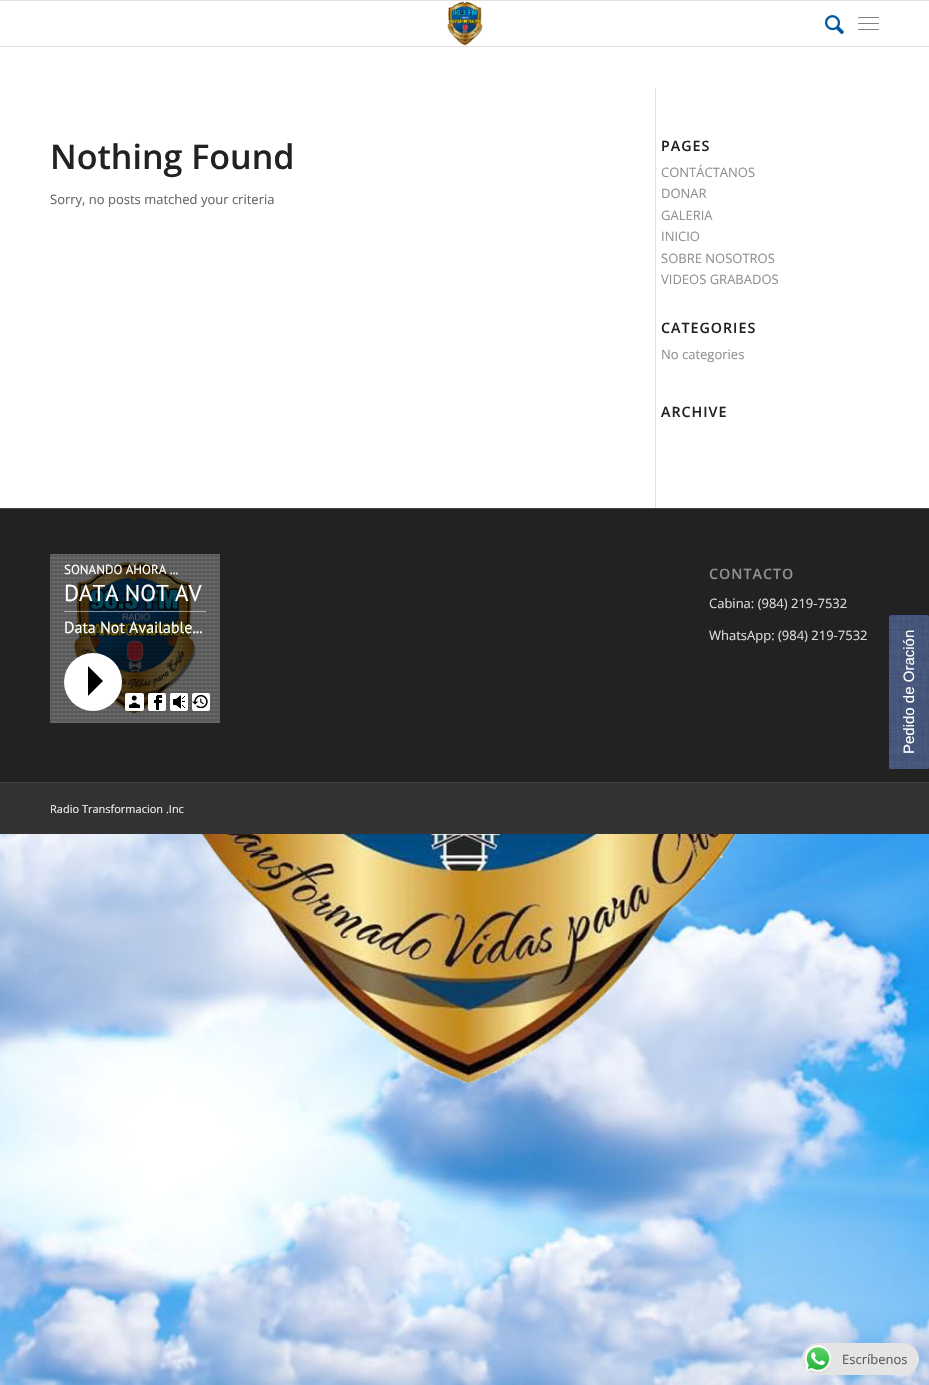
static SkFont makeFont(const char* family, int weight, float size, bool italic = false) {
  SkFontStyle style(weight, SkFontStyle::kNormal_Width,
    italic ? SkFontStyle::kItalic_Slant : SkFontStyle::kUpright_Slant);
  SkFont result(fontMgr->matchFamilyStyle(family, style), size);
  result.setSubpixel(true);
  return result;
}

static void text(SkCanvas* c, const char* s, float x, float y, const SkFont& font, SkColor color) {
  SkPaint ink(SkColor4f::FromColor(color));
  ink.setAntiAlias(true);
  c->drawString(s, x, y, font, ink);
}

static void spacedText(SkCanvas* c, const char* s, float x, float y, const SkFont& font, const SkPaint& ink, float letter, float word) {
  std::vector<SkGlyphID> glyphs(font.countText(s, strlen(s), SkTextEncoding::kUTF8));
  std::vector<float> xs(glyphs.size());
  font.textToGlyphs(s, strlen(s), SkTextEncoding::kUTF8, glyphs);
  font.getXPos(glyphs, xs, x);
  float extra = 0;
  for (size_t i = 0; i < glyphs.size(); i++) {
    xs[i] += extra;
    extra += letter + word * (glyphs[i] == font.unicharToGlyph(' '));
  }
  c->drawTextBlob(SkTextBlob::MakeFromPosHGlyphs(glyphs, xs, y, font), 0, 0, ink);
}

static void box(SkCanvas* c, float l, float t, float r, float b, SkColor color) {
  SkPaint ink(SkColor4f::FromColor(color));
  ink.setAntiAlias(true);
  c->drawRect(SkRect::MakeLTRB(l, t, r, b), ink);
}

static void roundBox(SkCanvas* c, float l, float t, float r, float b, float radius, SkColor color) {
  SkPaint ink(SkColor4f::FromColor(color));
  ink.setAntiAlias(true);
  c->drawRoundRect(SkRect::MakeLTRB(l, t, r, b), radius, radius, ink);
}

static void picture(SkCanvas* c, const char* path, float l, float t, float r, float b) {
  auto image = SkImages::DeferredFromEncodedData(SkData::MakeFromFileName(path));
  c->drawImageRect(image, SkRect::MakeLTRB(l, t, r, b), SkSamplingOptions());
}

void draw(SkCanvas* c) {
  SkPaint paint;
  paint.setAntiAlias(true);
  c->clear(0xffffffff);
  box(c, 0, 0, 929, 1, 0xffe1e1e1);
  box(c, 0, 46, 929, 47, 0xffe1e1e1);
  picture(c, "img_01.png", 447, 1, 483, 46);
  picture(c, "img_02.png", 825, 15, 844, 35);
  roundBox(c, 858, 23, 879, 24, 0.5f, 0xff808080);
  roundBox(c, 858, 17, 879, 18, 0.5f, 0xff808080);
  roundBox(c, 858, 29, 879, 30, 0.5f, 0xff808080);
  SkFont face1 = makeFont("Open Sans", 600, 34);
  text(c, "Nothing Found", 50, 169, face1, 0xff222222);
  SkFont face2 = makeFont("Open Sans", 400, 13);
  text(c, "Sorry, no posts matched your criteria", 50, 204, face2, 0xff666666);
  box(c, 655, 88, 656, 508, 0xffe1e1e1);
  SkFont face3 = makeFont("Open Sans", 600, 14.25f);
  paint.setColor(0xff222222);
  spacedText(c, "PAGES", 661, 151, face3, paint, 1, 0);
  text(c, "CONTÁCTANOS", 661, 177, face2, 0xff919191);
  text(c, "DONAR", 661, 198, face2, 0xff919191);
  text(c, "GALERIA", 661, 220, face2, 0xff919191);
  text(c, "INICIO", 661, 241, face2, 0xff919191);
  text(c, "SOBRE NOSOTROS", 661, 263, face2, 0xff919191);
  text(c, "VIDEOS GRABADOS", 661, 284, face2, 0xff919191);
  spacedText(c, "CATEGORIES", 661, 333, face3, paint, 1, 0);
  text(c, "No categories", 661, 359, face2, 0xff919191);
  spacedText(c, "ARCHIVE", 661, 417, face3, paint, 1, 0);
  box(c, 0, 509, 929, 782, 0xff222222);
  box(c, 0, 508, 929, 509, 0xff444444);
  picture(c, "img_03.png", 50, 554, 220, 723);
  picture(c, "img_04.png", 50, 554, 220, 723);
  SkFont face4 = makeFont("PT Sans", 400, 13);
  text(c, "SONANDO AHORA ...", 64, 574, face4, 0xffffffff);
  SkFont face5 = makeFont("PT Sans", 400, 23);
  text(c, "DATA NOT AV", 64, 601, face5, 0xffffffff);
  box(c, 64, 611, 206, 612, 0x80ffffff);
  SkFont face6 = makeFont("PT Sans", 400, 16);
  text(c, "Data Not Available...", 64, 633, face6, 0xffffffff);
  paint.setColor(0xffffffff);
  c->drawCircle(93, 682, 29, paint);
  picture(c, "img_05.png", 88, 666, 103, 696);
  roundBox(c, 125, 693, 144, 711, 2, 0xffffffff);
  picture(c, "img_06.png", 129, 695, 140, 708);
  roundBox(c, 148, 693, 166, 711, 2, 0xffffffff);
  picture(c, "img_07.png", 154, 695, 162, 710);
  roundBox(c, 170, 693, 188, 711, 2, 0xffffffff);
  picture(c, "img_08.png", 173, 695, 185, 709);
  roundBox(c, 192, 693, 210, 711, 2, 0xffffffff);
  picture(c, "img_09.png", 192, 695, 208, 708);
  paint.setColor(0xff919191);
  spacedText(c, "CONTACTO", 709, 579, face3, paint, 1, 0);
  text(c, "Cabina: (984) 219-7532", 709, 608, face2, 0xffdddddd);
  text(c, "WhatsApp: (984) 219-7532", 709, 640, face2, 0xffdddddd);
  box(c, 0, 783, 929, 834, 0xff333333);
  box(c, 0, 782, 929, 783, 0xff444444);
  SkFont face7 = makeFont("Open Sans", 400, 11);
  text(c, "Radio Transformacion .Inc", 50, 813, face7, 0xffeeeeee);
  paint.setColor(0xff335096);
  c->drawPath(SkPathBuilder().moveTo(889, 767).lineTo(889, 617).cubicTo(889, 616, 890, 615, 891, 615).lineTo(927, 615).cubicTo(928, 615, 929, 616, 929, 617).lineTo(929, 767).cubicTo(929, 768, 928, 769, 927, 769).lineTo(891, 769).cubicTo(890, 769, 889, 768, 889, 767).close().detach(), paint);
  picture(c, "img_10.png", 889, 615, 929, 769);
  SkFont face8 = makeFont("Liberation Sans", 400, 15);
  c->save();
  c->rotate(-90, 914, 754);
  text(c, "Pedido de Oración", 914, 754, face8, 0xffffffff);
  c->restore();
  picture(c, "img_11.png", 0, 834, 929, 1385);
  roundBox(c, 802, 1343, 919, 1375, 16, 0xffe4e4e4);
  picture(c, "img_12.png", 804, 1345, 832, 1373);
  text(c, "Escríbenos", 842, 1364, face2, 0xff5b5b5b);
}
